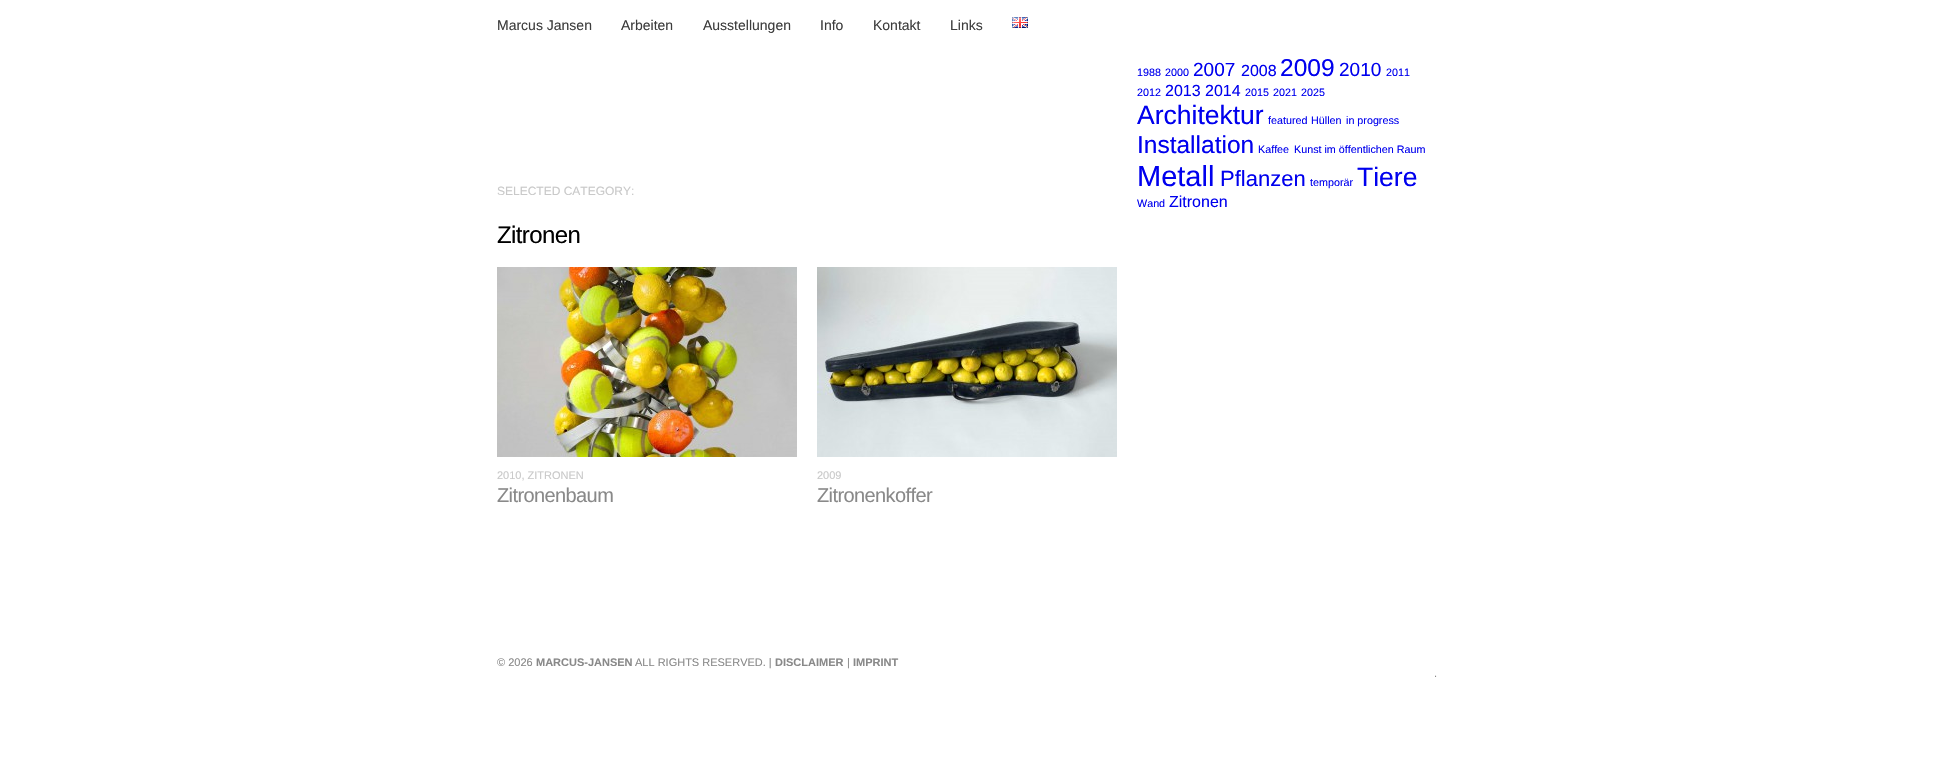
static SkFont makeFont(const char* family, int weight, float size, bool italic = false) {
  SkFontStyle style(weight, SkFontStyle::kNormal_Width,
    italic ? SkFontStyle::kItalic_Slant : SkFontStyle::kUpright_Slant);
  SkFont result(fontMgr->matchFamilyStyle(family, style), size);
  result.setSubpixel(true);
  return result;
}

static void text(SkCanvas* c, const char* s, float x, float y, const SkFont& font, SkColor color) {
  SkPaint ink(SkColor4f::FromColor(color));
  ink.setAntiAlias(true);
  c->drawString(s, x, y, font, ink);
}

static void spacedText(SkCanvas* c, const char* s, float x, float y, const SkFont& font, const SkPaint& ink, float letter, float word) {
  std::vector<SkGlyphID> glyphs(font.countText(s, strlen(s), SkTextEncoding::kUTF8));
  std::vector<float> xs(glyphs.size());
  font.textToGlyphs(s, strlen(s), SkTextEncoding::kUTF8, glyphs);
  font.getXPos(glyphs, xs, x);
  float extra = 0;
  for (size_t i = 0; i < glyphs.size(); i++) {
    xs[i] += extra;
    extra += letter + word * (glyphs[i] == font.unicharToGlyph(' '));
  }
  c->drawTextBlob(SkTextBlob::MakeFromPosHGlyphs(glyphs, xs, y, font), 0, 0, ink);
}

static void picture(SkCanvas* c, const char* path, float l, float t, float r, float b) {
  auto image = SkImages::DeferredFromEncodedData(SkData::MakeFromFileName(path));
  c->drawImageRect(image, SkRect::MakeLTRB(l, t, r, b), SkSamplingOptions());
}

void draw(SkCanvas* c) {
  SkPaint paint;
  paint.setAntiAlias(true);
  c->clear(0xffffffff);
  SkFont face1 = makeFont("Liberation Sans", 400, 14);
  text(c, "Marcus Jansen", 497, 30, face1, 0xff3d3d3d);
  text(c, "Arbeiten", 621, 30, face1, 0xff3d3d3d);
  text(c, "Ausstellungen", 703, 30, face1, 0xff3d3d3d);
  text(c, "Info", 820, 30, face1, 0xff3d3d3d);
  text(c, "Kontakt", 873, 30, face1, 0xff3d3d3d);
  text(c, "Links", 950, 30, face1, 0xff3d3d3d);
  picture(c, "img_01.png", 1012, 17, 1028, 28);
  SkFont face2 = makeFont("Liberation Sans", 400, 10.75f);
  text(c, "1988", 1137, 76, face2, 0xff0000ee);
  text(c, "2000", 1165, 76, face2, 0xff0000ee);
  SkFont face3 = makeFont("Liberation Sans", 400, 19);
  text(c, "2007", 1193, 76, face3, 0xff0000ee);
  SkFont face4 = makeFont("Liberation Sans", 400, 16);
  text(c, "2008", 1241, 76, face4, 0xff0000ee);
  SkFont face5 = makeFont("Liberation Sans", 400, 24.5f);
  text(c, "2009", 1280, 76, face5, 0xff0000ee);
  text(c, "2010", 1339, 76, face3, 0xff0000ee);
  text(c, "2011", 1386, 76, face2, 0xff0000ee);
  text(c, "2012", 1137, 96, face2, 0xff0000ee);
  text(c, "2013 2014", 1165, 96, face4, 0xff0000ee);
  text(c, "2015", 1245, 96, face2, 0xff0000ee);
  text(c, "2021", 1273, 96, face2, 0xff0000ee);
  text(c, "2025", 1301, 96, face2, 0xff0000ee);
  SkFont face6 = makeFont("Liberation Sans", 400, 26.5f);
  text(c, "Architektur", 1137, 124, face6, 0xff0000ee);
  text(c, "featured", 1268, 124, face2, 0xff0000ee);
  text(c, "Hüllen", 1311, 124, face2, 0xff0000ee);
  text(c, "in progress", 1346, 124, face2, 0xff0000ee);
  text(c, "Installation", 1137, 153, face5, 0xff0000ee);
  text(c, "Kaffee", 1258, 153, face2, 0xff0000ee);
  text(c, "Kunst im öffentlichen Raum", 1294, 153, face2, 0xff0000ee);
  SkFont face7 = makeFont("Liberation Sans", 400, 29);
  text(c, "Metall", 1137, 186, face7, 0xff0000ee);
  SkFont face8 = makeFont("Liberation Sans", 400, 22);
  text(c, "Pflanzen", 1220, 186, face8, 0xff0000ee);
  text(c, "temporär", 1310, 186, face2, 0xff0000ee);
  text(c, "Tiere", 1357, 186, face6, 0xff0000ee);
  text(c, "Wand", 1137, 207, face2, 0xff0000ee);
  text(c, "Zitronen", 1169, 207, face4, 0xff0000ee);
  SkFont face9 = makeFont("Liberation Sans", 400, 12);
  text(c, "SELECTED CATEGORY:", 497, 195, face9, 0xffc9c9c9);
  SkFont face10 = makeFont("Liberation Sans", 400, 24);
  paint.setColor(0xff000000);
  spacedText(c, "Zitronen", 497, 243, face10, paint, -0.6f, 0);
  picture(c, "img_02.png", 497, 267, 797, 457);
  SkFont face11 = makeFont("Liberation Sans", 400, 11);
  text(c, "2010, ZITRONEN", 497, 479, face11, 0xffc9c9c9);
  SkFont face12 = makeFont("Liberation Sans", 400, 20);
  paint.setColor(0xff898989);
  spacedText(c, "Zitronenbaum", 497, 502, face12, paint, -0.6f, 0);
  picture(c, "img_03.png", 817, 267, 1117, 457);
  text(c, "2009", 817, 479, face11, 0xffc9c9c9);
  spacedText(c, "Zitronenkoffer", 817, 502, face12, paint, -0.6f, 0);
  text(c, "© 2026", 497, 666, face11, 0xff898989);
  SkFont face13 = makeFont("Liberation Sans", 700, 11);
  text(c, "MARCUS-JANSEN", 536, 666, face13, 0xff898989);
  text(c, "ALL RIGHTS RESERVED. |", 635, 666, face11, 0xff898989);
  text(c, "DISCLAIMER", 775, 666, face13, 0xff898989);
  text(c, "|", 847, 666, face11, 0xff898989);
  text(c, "IMPRINT", 853, 666, face13, 0xff898989);
  text(c, ".", 1434, 677, face11, 0xff898989);
}
